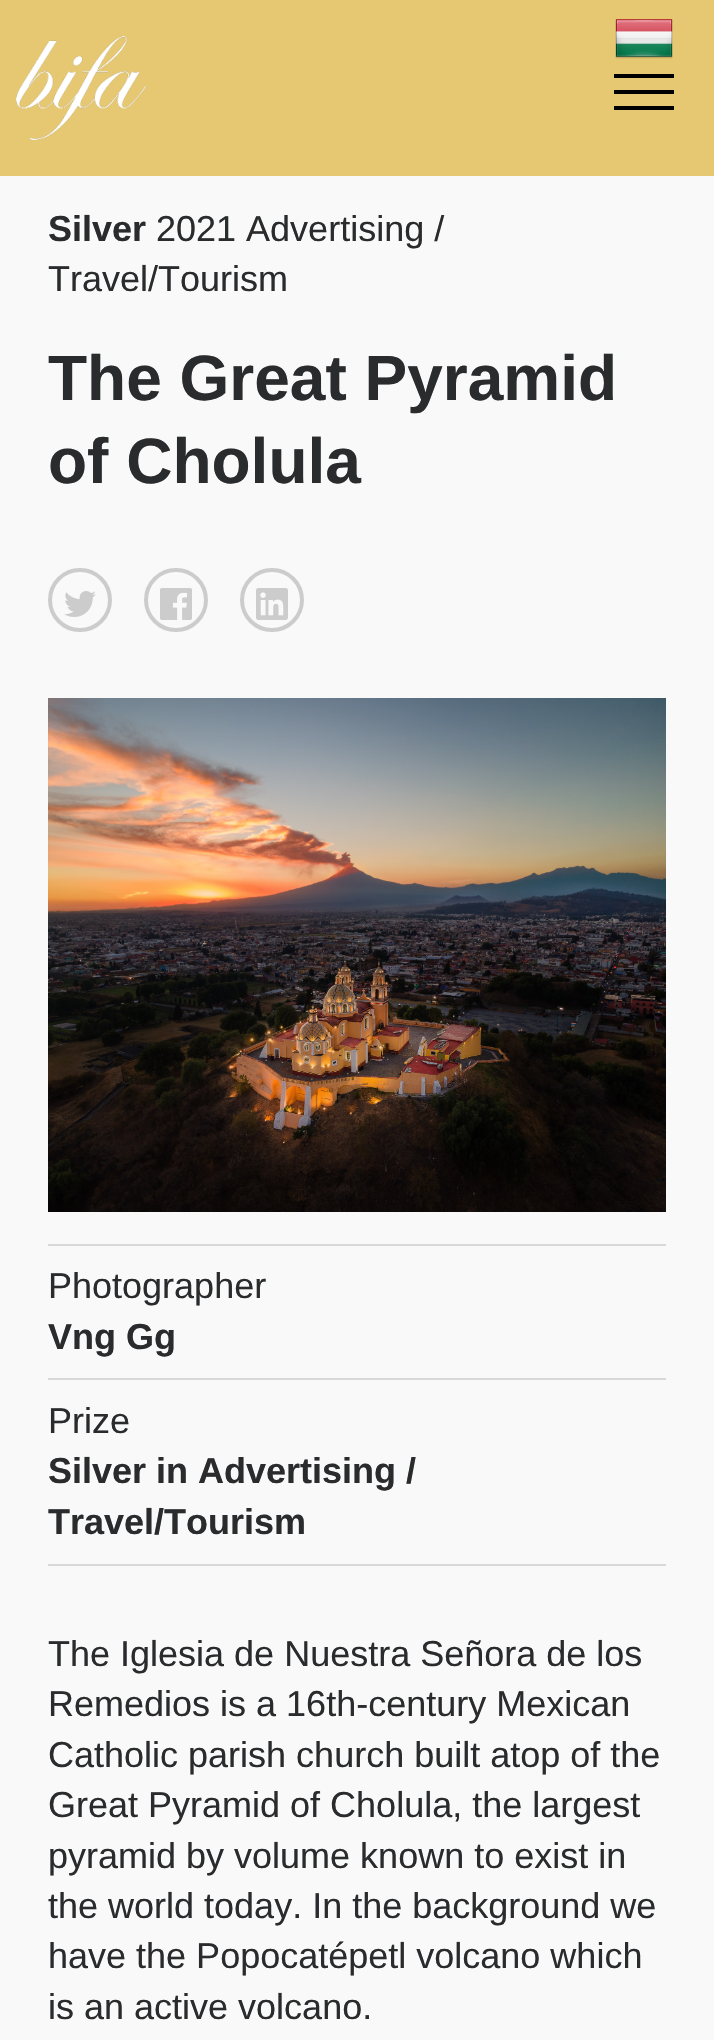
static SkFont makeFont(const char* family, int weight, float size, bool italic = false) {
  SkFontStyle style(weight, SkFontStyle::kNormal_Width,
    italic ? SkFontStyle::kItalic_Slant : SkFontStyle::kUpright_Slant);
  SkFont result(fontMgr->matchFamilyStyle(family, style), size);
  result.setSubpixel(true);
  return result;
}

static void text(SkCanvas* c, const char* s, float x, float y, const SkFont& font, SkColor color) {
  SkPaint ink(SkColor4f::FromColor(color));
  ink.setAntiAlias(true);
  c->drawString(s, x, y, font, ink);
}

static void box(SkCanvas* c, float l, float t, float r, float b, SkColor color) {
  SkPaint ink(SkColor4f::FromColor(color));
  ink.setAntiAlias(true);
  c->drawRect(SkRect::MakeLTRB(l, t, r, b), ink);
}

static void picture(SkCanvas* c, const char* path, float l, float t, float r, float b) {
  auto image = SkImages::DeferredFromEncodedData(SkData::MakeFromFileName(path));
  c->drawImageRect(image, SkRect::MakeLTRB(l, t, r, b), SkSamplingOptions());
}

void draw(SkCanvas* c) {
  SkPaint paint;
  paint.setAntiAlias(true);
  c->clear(0xfff9f9f9);
  box(c, 0, 0, 714, 176, 0xffe6c873);
  picture(c, "img_01.png", 16, 36, 146, 140);
  picture(c, "img_02.png", 615, 19, 673, 59);
  box(c, 614, 74, 674, 78, 0xff000000);
  box(c, 614, 90, 674, 94, 0xff000000);
  box(c, 614, 106, 674, 110, 0xff000000);
  SkFont face1 = makeFont("Liberation Sans", 700, 36);
  text(c, "Silver", 48, 241, face1, 0xff2a2b2d);
  SkFont face2 = makeFont("Liberation Sans", 400, 36);
  text(c, "2021 Advertising /", 156, 241, face2, 0xff2a2b2d);
  text(c, "Travel/Tourism", 48, 291, face2, 0xff2a2b2d);
  SkFont face3 = makeFont("Liberation Sans", 700, 64);
  text(c, "The Great Pyramid", 48, 400, face3, 0xff2a2b2d);
  text(c, "of Cholula", 48, 483, face3, 0xff2a2b2d);
  paint.setStyle(SkPaint::kStroke_Style);
  paint.setStrokeWidth(4);
  paint.setColor(0xffcccccc);
  c->drawCircle(80, 600, 30, paint);
  picture(c, "img_03.png", 64, 591, 96, 617);
  c->drawCircle(176, 600, 30, paint);
  picture(c, "img_04.png", 160, 588, 192, 620);
  c->drawCircle(272, 600, 30, paint);
  picture(c, "img_05.png", 256, 588, 288, 620);
  picture(c, "img_06.png", 48, 698, 666, 1212);
  box(c, 48, 1244, 666, 1246, 0xffd8d8d8);
  box(c, 48, 1378, 666, 1380, 0xffd8d8d8);
  text(c, "Photographer", 48, 1298, face2, 0xff2a2b2d);
  text(c, "Vng Gg", 48, 1349, face1, 0xff2a2b2d);
  box(c, 48, 1564, 666, 1566, 0xffd8d8d8);
  text(c, "Prize", 48, 1433, face2, 0xff2a2b2d);
  text(c, "Silver in Advertising /", 48, 1483, face1, 0xff2a2b2d);
  text(c, "Travel/Tourism", 48, 1534, face1, 0xff2a2b2d);
  text(c, "The Iglesia de Nuestra Señora de los", 48, 1666, face2, 0xff2a2b2d);
  text(c, "Remedios is a 16th-century Mexican", 48, 1716, face2, 0xff2a2b2d);
  text(c, "Catholic parish church built atop of the", 48, 1767, face2, 0xff2a2b2d);
  text(c, "Great Pyramid of Cholula, the largest", 48, 1817, face2, 0xff2a2b2d);
  text(c, "pyramid by volume known to exist in", 48, 1868, face2, 0xff2a2b2d);
  text(c, "the world today. In the background we", 48, 1918, face2, 0xff2a2b2d);
  text(c, "have the Popocatépetl volcano which", 48, 1968, face2, 0xff2a2b2d);
  text(c, "is an active volcano.", 48, 2019, face2, 0xff2a2b2d);
}
